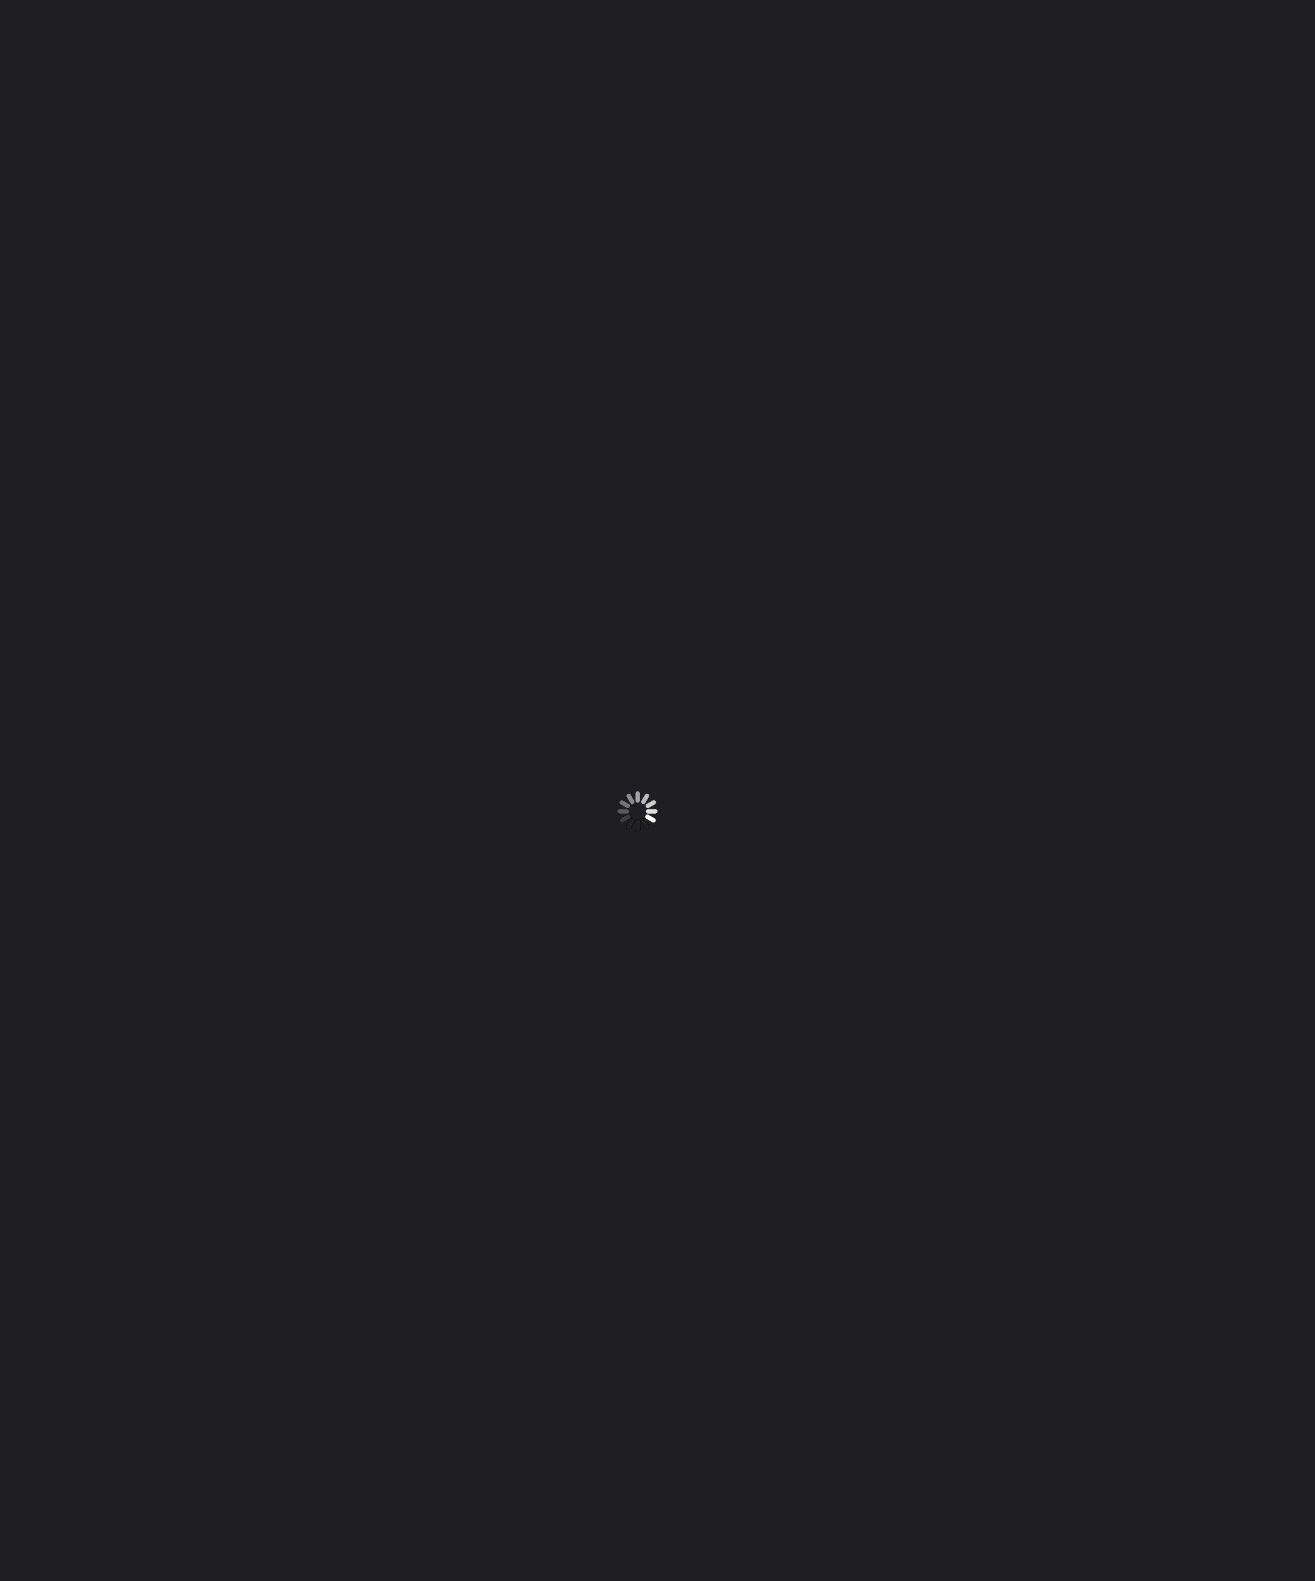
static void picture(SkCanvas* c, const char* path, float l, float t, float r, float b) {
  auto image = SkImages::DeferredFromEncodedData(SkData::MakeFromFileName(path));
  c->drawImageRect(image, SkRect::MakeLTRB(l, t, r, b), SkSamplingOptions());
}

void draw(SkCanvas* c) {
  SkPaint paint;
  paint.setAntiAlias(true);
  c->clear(0xff1e1e23);
  picture(c, "img_01.png", 617, 791, 658, 832);
}
